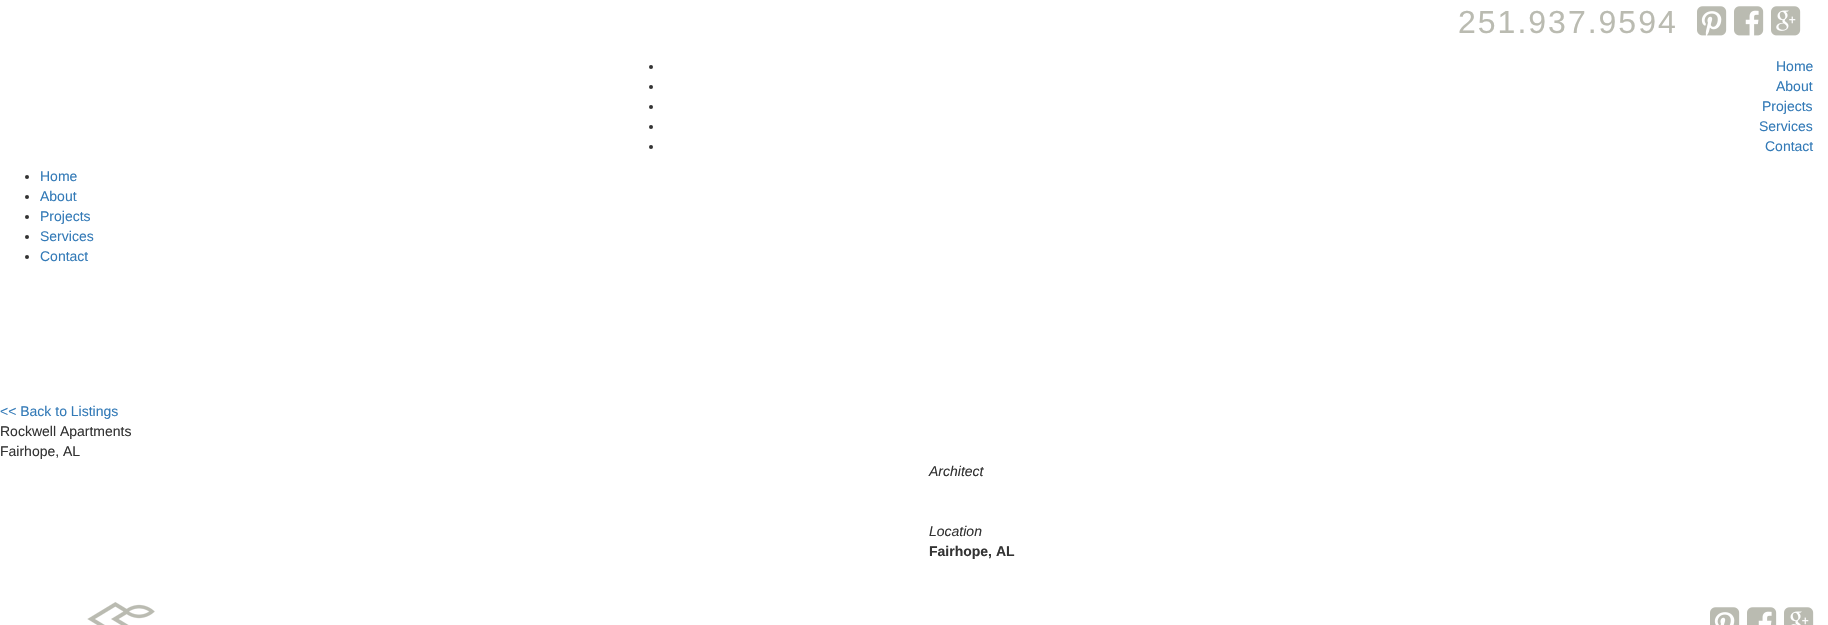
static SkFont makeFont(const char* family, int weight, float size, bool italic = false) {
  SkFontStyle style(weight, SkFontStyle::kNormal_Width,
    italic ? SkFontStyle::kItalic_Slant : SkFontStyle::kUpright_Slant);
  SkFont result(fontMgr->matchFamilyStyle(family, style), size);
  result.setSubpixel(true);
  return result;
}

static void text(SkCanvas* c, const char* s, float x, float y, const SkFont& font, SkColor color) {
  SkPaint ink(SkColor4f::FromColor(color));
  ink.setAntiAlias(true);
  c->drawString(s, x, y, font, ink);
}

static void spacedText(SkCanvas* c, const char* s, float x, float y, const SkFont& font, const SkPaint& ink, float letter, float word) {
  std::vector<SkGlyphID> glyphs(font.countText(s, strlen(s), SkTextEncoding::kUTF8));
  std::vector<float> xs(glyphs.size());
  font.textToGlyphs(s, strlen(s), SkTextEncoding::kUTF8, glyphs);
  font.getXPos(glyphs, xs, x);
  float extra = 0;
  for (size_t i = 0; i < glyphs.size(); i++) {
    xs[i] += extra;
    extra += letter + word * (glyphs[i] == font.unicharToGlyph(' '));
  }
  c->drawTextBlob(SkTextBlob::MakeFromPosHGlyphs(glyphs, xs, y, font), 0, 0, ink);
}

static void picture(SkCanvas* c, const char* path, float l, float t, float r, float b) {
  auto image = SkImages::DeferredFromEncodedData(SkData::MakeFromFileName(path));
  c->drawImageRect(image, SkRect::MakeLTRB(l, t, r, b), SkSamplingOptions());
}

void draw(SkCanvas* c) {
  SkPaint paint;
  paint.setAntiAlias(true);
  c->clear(0xffffffff);
  SkFont face1 = makeFont("Liberation Sans", 400, 32);
  paint.setColor(0xffbabbb1);
  spacedText(c, "251.937.9594", 1458, 33, face1, paint, 2, 0);
  picture(c, "img_01.png", 1697, 6, 1727, 36);
  picture(c, "img_02.png", 1734, 6, 1764, 36);
  picture(c, "img_03.png", 1771, 6, 1801, 36);
  paint.setColor(0xff333333);
  c->drawCircle(651, 67, 2, paint);
  SkFont face2 = makeFont("Liberation Sans", 400, 14);
  text(c, "Home", 1776, 71, face2, 0xff337ab7);
  c->drawCircle(651, 87, 2, paint);
  text(c, "About", 1776, 91, face2, 0xff337ab7);
  c->drawCircle(651, 107, 2, paint);
  text(c, "Projects", 1762, 111, face2, 0xff337ab7);
  c->drawCircle(651, 127, 2, paint);
  text(c, "Services", 1759, 131, face2, 0xff337ab7);
  c->drawCircle(651, 147, 2, paint);
  text(c, "Contact", 1765, 151, face2, 0xff337ab7);
  c->drawCircle(27, 177, 2, paint);
  text(c, "Home", 40, 181, face2, 0xff337ab7);
  c->drawCircle(27, 197, 2, paint);
  text(c, "About", 40, 201, face2, 0xff337ab7);
  c->drawCircle(27, 217, 2, paint);
  text(c, "Projects", 40, 221, face2, 0xff337ab7);
  c->drawCircle(27, 237, 2, paint);
  text(c, "Services", 40, 241, face2, 0xff337ab7);
  c->drawCircle(27, 257, 2, paint);
  text(c, "Contact", 40, 261, face2, 0xff337ab7);
  text(c, "<< Back to Listings", 0, 416, face2, 0xff337ab7);
  text(c, "Rockwell Apartments", 0, 436, face2, 0xff333333);
  text(c, "Fairhope, AL", 0, 456, face2, 0xff333333);
  SkFont face3 = makeFont("Liberation Sans", 400, 14, true);
  text(c, "Architect", 929, 476, face3, 0xff333333);
  text(c, "Location", 929, 536, face3, 0xff333333);
  SkFont face4 = makeFont("Liberation Sans", 700, 14);
  text(c, "Fairhope, AL", 929, 556, face4, 0xff333333);
  picture(c, "img_04.png", 87, 602, 155, 625);
  picture(c, "img_05.png", 1710, 607, 1740, 625);
  picture(c, "img_06.png", 1747, 607, 1777, 625);
  picture(c, "img_07.png", 1784, 607, 1814, 625);
}
